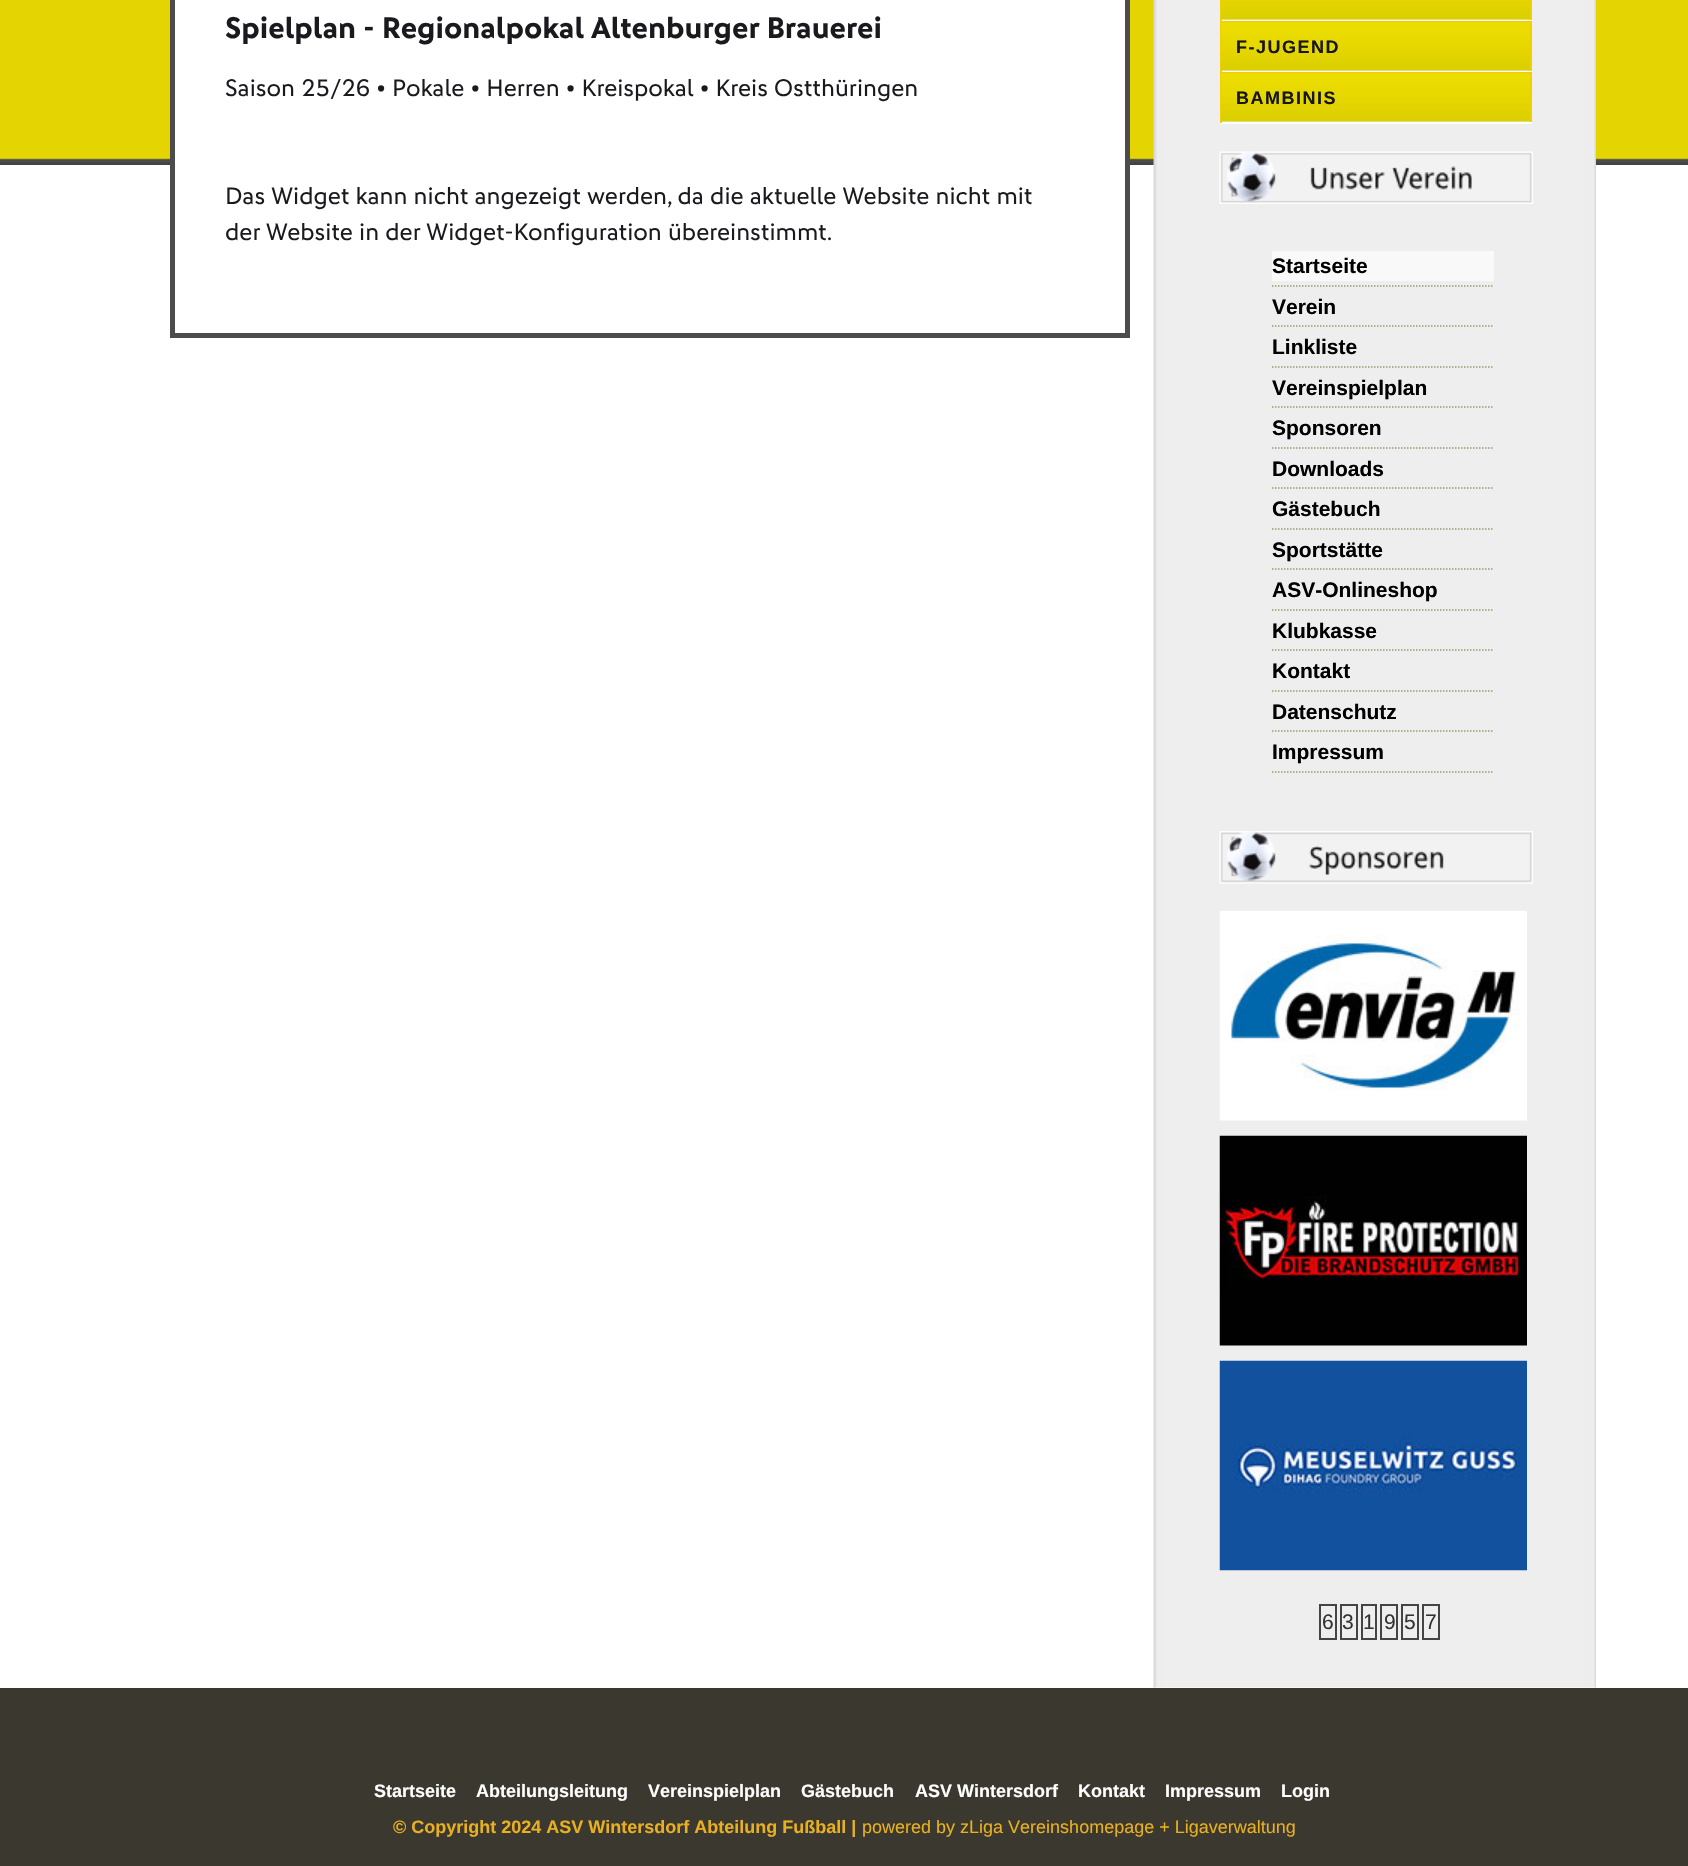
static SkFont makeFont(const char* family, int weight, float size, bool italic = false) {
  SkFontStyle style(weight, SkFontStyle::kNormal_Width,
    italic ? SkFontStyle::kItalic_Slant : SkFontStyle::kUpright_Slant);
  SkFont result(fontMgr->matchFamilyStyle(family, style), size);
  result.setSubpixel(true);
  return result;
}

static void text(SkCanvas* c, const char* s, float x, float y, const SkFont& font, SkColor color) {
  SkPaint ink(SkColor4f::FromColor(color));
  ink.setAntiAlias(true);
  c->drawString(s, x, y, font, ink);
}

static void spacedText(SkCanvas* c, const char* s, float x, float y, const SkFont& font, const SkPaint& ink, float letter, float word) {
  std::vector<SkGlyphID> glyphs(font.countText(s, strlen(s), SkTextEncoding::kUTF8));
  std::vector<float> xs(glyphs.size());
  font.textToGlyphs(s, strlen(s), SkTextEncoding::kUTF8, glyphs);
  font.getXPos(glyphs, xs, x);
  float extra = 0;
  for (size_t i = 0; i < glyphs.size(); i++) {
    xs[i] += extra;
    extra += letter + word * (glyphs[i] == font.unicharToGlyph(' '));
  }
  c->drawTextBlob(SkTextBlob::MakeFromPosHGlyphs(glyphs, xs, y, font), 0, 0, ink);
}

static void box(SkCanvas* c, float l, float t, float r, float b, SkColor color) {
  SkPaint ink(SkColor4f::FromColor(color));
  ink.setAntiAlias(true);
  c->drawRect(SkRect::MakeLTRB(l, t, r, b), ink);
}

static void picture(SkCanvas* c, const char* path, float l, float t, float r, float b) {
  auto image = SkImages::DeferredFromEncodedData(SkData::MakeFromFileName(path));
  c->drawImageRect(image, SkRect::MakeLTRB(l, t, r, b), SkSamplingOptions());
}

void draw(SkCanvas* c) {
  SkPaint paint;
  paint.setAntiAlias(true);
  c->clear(0xffffffff);
  picture(c, "img_01.png", 0, 0, 1688, 165);
  picture(c, "img_02.png", 1153, 0, 1596, 1688);
  box(c, 175, 0, 1125, 165, 0xffffffff);
  paint.setStyle(SkPaint::kStroke_Style);
  paint.setStrokeWidth(5);
  paint.setColor(0xff4c4c4e);
  c->drawRect(SkRect::MakeLTRB(172.5f, -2.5f, 1127.5f, 335.5f), paint);
  picture(c, "img_03.png", 225, 16, 1032, 246);
  box(c, 1530, 0, 1532, 21, 0xfff2cf03);
  box(c, 1220, 20, 1532, 21, 0xffffffff);
  box(c, 1220, 0, 1222, 21, 0xfff2cf03);
  picture(c, "img_04.png", 1221, 0, 1530, 20);
  box(c, 1220, 21, 1532, 23, 0xfff2cf03);
  box(c, 1530, 21, 1532, 72, 0xfff2cf03);
  box(c, 1220, 71, 1532, 72, 0xffffffff);
  box(c, 1220, 21, 1222, 72, 0xfff2cf03);
  picture(c, "img_05.png", 1221, 22, 1530, 71);
  SkFont face1 = makeFont("Liberation Sans", 700, 18);
  paint.setStyle(SkPaint::kFill_Style);
  paint.setColor(0xff171616);
  spacedText(c, "F-JUGEND", 1236, 53, face1, paint, 1.5f, 0);
  box(c, 1220, 72, 1532, 74, 0xfff2cf03);
  box(c, 1530, 72, 1532, 123, 0xfff2cf03);
  box(c, 1220, 122, 1532, 124, 0xffffffff);
  box(c, 1220, 72, 1222, 123, 0xfff2cf03);
  picture(c, "img_05.png", 1221, 73, 1530, 122);
  spacedText(c, "BAMBINIS", 1236, 104, face1, paint, 1.5f, 0);
  picture(c, "img_06.png", 1219, 151, 1533, 204);
  picture(c, "img_07.png", 1310, 167, 1385, 190);
  picture(c, "img_08.png", 1391, 166, 1472, 190);
  paint.setStyle(SkPaint::kStroke_Style);
  paint.setStrokeWidth(1.5f);
  paint.setColor(0xff9e9a6e);
  paint.setPathEffect(SkDashPathEffect::Make({{1.5f, 1.5f}}, 0));
  c->drawPath(SkPathBuilder().moveTo(1272, 286).lineTo(1494, 286).detach(), paint);
  paint.setPathEffect(nullptr);
  box(c, 1272, 251, 1494, 281, 0xfff9f9f9);
  SkFont face2 = makeFont("Liberation Sans", 700, 21);
  text(c, "Startseite", 1272, 273, face2, 0xff000000);
  paint.setPathEffect(SkDashPathEffect::Make({{1.5f, 1.5f}}, 0));
  c->drawPath(SkPathBuilder().moveTo(1272, 326).lineTo(1494, 326).detach(), paint);
  paint.setPathEffect(nullptr);
  text(c, "Verein", 1272, 314, face2, 0xff000000);
  paint.setPathEffect(SkDashPathEffect::Make({{1.5f, 1.5f}}, 0));
  c->drawPath(SkPathBuilder().moveTo(1272, 367).lineTo(1494, 367).detach(), paint);
  paint.setPathEffect(nullptr);
  text(c, "Linkliste", 1272, 354, face2, 0xff000000);
  paint.setPathEffect(SkDashPathEffect::Make({{1.5f, 1.5f}}, 0));
  c->drawPath(SkPathBuilder().moveTo(1272, 407).lineTo(1494, 407).detach(), paint);
  paint.setPathEffect(nullptr);
  text(c, "Vereinspielplan", 1272, 395, face2, 0xff000000);
  paint.setPathEffect(SkDashPathEffect::Make({{1.5f, 1.5f}}, 0));
  c->drawPath(SkPathBuilder().moveTo(1272, 448).lineTo(1494, 448).detach(), paint);
  paint.setPathEffect(nullptr);
  text(c, "Sponsoren", 1272, 435, face2, 0xff000000);
  paint.setPathEffect(SkDashPathEffect::Make({{1.5f, 1.5f}}, 0));
  c->drawPath(SkPathBuilder().moveTo(1272, 488).lineTo(1494, 488).detach(), paint);
  paint.setPathEffect(nullptr);
  text(c, "Downloads", 1272, 476, face2, 0xff000000);
  paint.setPathEffect(SkDashPathEffect::Make({{1.5f, 1.5f}}, 0));
  c->drawPath(SkPathBuilder().moveTo(1272, 529).lineTo(1494, 529).detach(), paint);
  paint.setPathEffect(nullptr);
  text(c, "Gästebuch", 1272, 516, face2, 0xff000000);
  paint.setPathEffect(SkDashPathEffect::Make({{1.5f, 1.5f}}, 0));
  c->drawPath(SkPathBuilder().moveTo(1272, 569).lineTo(1494, 569).detach(), paint);
  paint.setPathEffect(nullptr);
  text(c, "Sportstätte", 1272, 557, face2, 0xff000000);
  paint.setPathEffect(SkDashPathEffect::Make({{1.5f, 1.5f}}, 0));
  c->drawPath(SkPathBuilder().moveTo(1272, 610).lineTo(1494, 610).detach(), paint);
  paint.setPathEffect(nullptr);
  text(c, "ASV-Onlineshop", 1272, 597, face2, 0xff000000);
  paint.setPathEffect(SkDashPathEffect::Make({{1.5f, 1.5f}}, 0));
  c->drawPath(SkPathBuilder().moveTo(1272, 650).lineTo(1494, 650).detach(), paint);
  paint.setPathEffect(nullptr);
  text(c, "Klubkasse", 1272, 638, face2, 0xff000000);
  paint.setPathEffect(SkDashPathEffect::Make({{1.5f, 1.5f}}, 0));
  c->drawPath(SkPathBuilder().moveTo(1272, 691).lineTo(1494, 691).detach(), paint);
  paint.setPathEffect(nullptr);
  text(c, "Kontakt", 1272, 678, face2, 0xff000000);
  paint.setPathEffect(SkDashPathEffect::Make({{1.5f, 1.5f}}, 0));
  c->drawPath(SkPathBuilder().moveTo(1272, 731).lineTo(1494, 731).detach(), paint);
  paint.setPathEffect(nullptr);
  text(c, "Datenschutz", 1272, 719, face2, 0xff000000);
  paint.setPathEffect(SkDashPathEffect::Make({{1.5f, 1.5f}}, 0));
  c->drawPath(SkPathBuilder().moveTo(1272, 772).lineTo(1494, 772).detach(), paint);
  paint.setPathEffect(nullptr);
  text(c, "Impressum", 1272, 759, face2, 0xff000000);
  picture(c, "img_09.png", 1219, 831, 1533, 884);
  picture(c, "img_10.png", 1309, 846, 1444, 875);
  picture(c, "img_11.png", 1219, 910, 1527, 1121);
  picture(c, "img_12.png", 1219, 1135, 1527, 1346);
  picture(c, "img_13.png", 1219, 1360, 1527, 1571);
  paint.setStrokeWidth(2);
  paint.setColor(0xff444444);
  c->drawRect(SkRect::MakeLTRB(1320, 1605, 1336, 1639), paint);
  SkFont face3 = makeFont("Liberation Sans", 400, 21);
  text(c, "6", 1322, 1629, face3, 0xff333333);
  c->drawRect(SkRect::MakeLTRB(1341, 1605, 1357, 1639), paint);
  text(c, "3", 1342, 1629, face3, 0xff333333);
  c->drawRect(SkRect::MakeLTRB(1362, 1605, 1376, 1639), paint);
  text(c, "1", 1363, 1629, face3, 0xff333333);
  c->drawRect(SkRect::MakeLTRB(1381, 1605, 1397, 1639), paint);
  text(c, "9", 1384, 1629, face3, 0xff333333);
  c->drawRect(SkRect::MakeLTRB(1402, 1605, 1418, 1639), paint);
  text(c, "5", 1404, 1629, face3, 0xff333333);
  c->drawRect(SkRect::MakeLTRB(1423, 1605, 1439, 1639), paint);
  text(c, "7", 1425, 1629, face3, 0xff333333);
  box(c, 0, 1688, 1688, 1866, 0xff3b3830);
  text(c, "Startseite", 374, 1797, face1, 0xffffffff);
  text(c, "Abteilungsleitung", 476, 1797, face1, 0xffffffff);
  text(c, "Vereinspielplan", 648, 1797, face1, 0xffffffff);
  text(c, "Gästebuch", 801, 1797, face1, 0xffffffff);
  text(c, "ASV Wintersdorf", 915, 1797, face1, 0xffffffff);
  text(c, "Kontakt", 1078, 1797, face1, 0xffffffff);
  text(c, "Impressum", 1165, 1797, face1, 0xffffffff);
  text(c, "Login", 1281, 1797, face1, 0xffffffff);
  text(c, "© Copyright 2024 ASV Wintersdorf Abteilung Fußball |", 393, 1833, face1, 0xffe8b021);
  SkFont face4 = makeFont("Liberation Sans", 400, 18);
  text(c, "powered by zLiga Vereinshomepage + Ligaverwaltung", 862, 1833, face4, 0xffe8b021);
}
